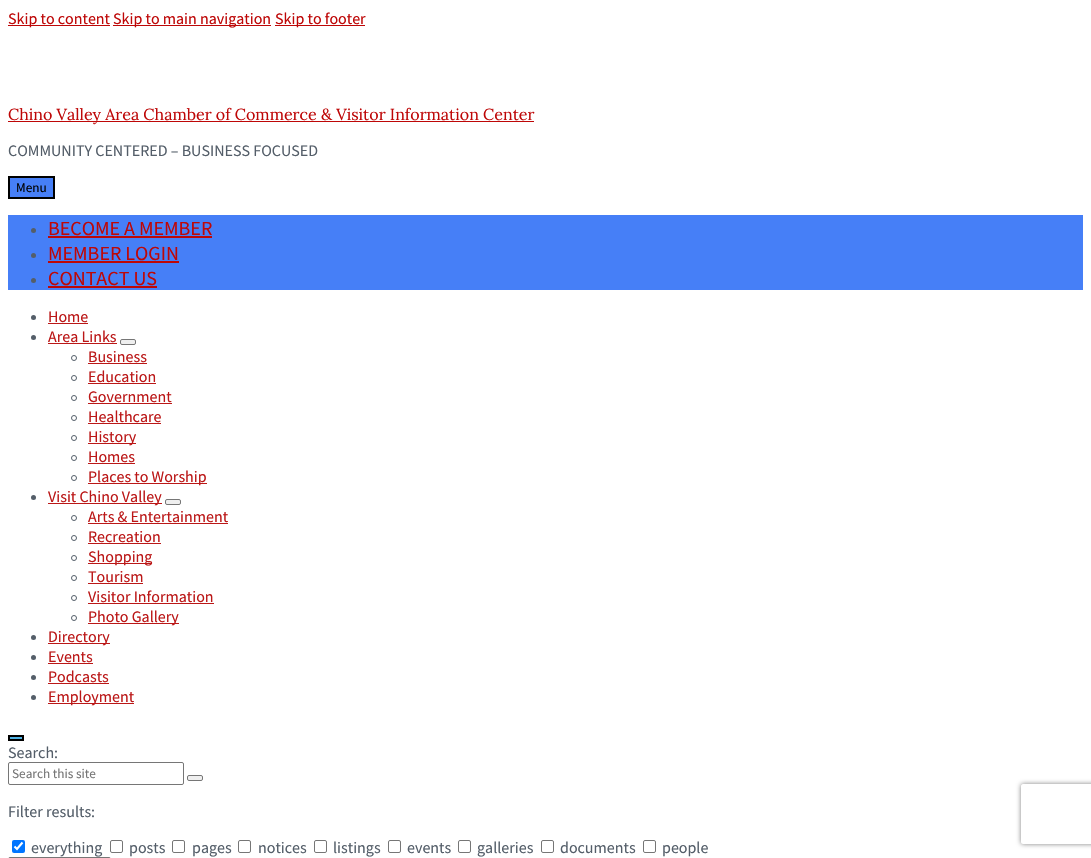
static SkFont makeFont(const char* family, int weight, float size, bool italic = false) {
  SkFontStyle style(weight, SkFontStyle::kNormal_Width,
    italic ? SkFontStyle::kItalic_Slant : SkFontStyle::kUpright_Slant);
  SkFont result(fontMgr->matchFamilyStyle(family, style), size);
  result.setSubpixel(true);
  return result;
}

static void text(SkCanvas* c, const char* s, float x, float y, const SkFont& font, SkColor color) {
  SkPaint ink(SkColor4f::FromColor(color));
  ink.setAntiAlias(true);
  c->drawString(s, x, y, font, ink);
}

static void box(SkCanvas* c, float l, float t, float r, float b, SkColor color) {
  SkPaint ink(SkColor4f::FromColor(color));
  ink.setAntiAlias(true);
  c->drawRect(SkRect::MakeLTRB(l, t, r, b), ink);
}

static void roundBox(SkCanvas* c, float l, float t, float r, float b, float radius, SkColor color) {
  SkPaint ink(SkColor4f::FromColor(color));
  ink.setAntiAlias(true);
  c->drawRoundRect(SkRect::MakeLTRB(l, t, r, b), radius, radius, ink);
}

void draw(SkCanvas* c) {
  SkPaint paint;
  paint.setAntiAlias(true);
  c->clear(0xffffffff);
  box(c, 8, 25, 110, 26, 0xffbe0707);
  SkFont face1 = makeFont("Source Sans Pro", 400, 16);
  text(c, "Skip to content", 8, 24, face1, 0xffbe0707);
  box(c, 113, 25, 271, 26, 0xffbe0707);
  text(c, "Skip to main navigation", 113, 24, face1, 0xffbe0707);
  box(c, 275, 25, 365, 26, 0xffbe0707);
  text(c, "Skip to footer", 275, 24, face1, 0xffbe0707);
  box(c, 8, 121, 534, 122, 0xffbe0707);
  SkFont face2 = makeFont("Lora", 400, 16);
  text(c, "Chino Valley Area Chamber of Commerce & Visitor Information Center", 8, 120, face2, 0xffbe0707);
  text(c, "COMMUNITY CENTERED – BUSINESS FOCUSED", 8, 156, face1, 0xff545e69);
  paint.setColor(0xff467ff7);
  c->drawRect(SkRect::MakeLTRB(9, 177, 54, 198), paint);
  paint.setStyle(SkPaint::kStroke_Style);
  paint.setStrokeWidth(2);
  paint.setColor(0xff000000);
  c->drawRect(SkRect::MakeLTRB(9, 177, 54, 198), paint);
  SkFont face3 = makeFont("Source Sans Pro", 400, 13.25f);
  text(c, "Menu", 16, 192, face3, 0xff000000);
  box(c, 8, 215, 1083, 290, 0xff467ff7);
  paint.setStyle(SkPaint::kFill_Style);
  paint.setColor(0xff545e69);
  c->drawCircle(33.5f, 230.5f, 2.5f, paint);
  SkFont face4 = makeFont("Source Sans Pro", 400, 20);
  text(c, "BECOME A MEMBER", 48, 235, face4, 0xffbe0707);
  box(c, 48, 236, 212, 238, 0xffbe0707);
  c->drawCircle(33.5f, 255.5f, 2.5f, paint);
  text(c, "MEMBER LOGIN", 48, 260, face4, 0xffbe0707);
  box(c, 48, 261, 179, 263, 0xffbe0707);
  c->drawCircle(33.5f, 280.5f, 2.5f, paint);
  text(c, "CONTACT US", 48, 285, face4, 0xffbe0707);
  box(c, 48, 286, 157, 288, 0xffbe0707);
  c->drawCircle(33.5f, 317.5f, 2.5f, paint);
  text(c, "Home", 48, 322, face1, 0xffbb1717);
  box(c, 48, 323, 88, 324, 0xffbb1717);
  c->drawCircle(33.5f, 337.5f, 2.5f, paint);
  text(c, "Area Links", 48, 342, face1, 0xffbb1717);
  box(c, 48, 343, 117, 344, 0xffbb1717);
  paint.setColor(0xffefefef);
  c->drawRoundRect(SkRect::MakeLTRB(120.5f, 339.5f, 135.5f, 344.5f), 1.5f, 1.5f, paint);
  paint.setStyle(SkPaint::kStroke_Style);
  paint.setStrokeWidth(1);
  paint.setColor(0xff767676);
  c->drawRoundRect(SkRect::MakeLTRB(120.5f, 339.5f, 135.5f, 344.5f), 1.5f, 1.5f, paint);
  paint.setColor(0xff545e69);
  c->drawCircle(74, 358, 2.5f, paint);
  text(c, "Business", 88, 362, face1, 0xffbb1717);
  box(c, 88, 363, 147, 364, 0xffbb1717);
  c->drawCircle(74, 378, 2.5f, paint);
  text(c, "Education", 88, 382, face1, 0xffbb1717);
  box(c, 88, 383, 156, 384, 0xffbb1717);
  c->drawCircle(74, 398, 2.5f, paint);
  text(c, "Government", 88, 402, face1, 0xffbb1717);
  box(c, 88, 403, 172, 404, 0xffbb1717);
  c->drawCircle(74, 418, 2.5f, paint);
  text(c, "Healthcare", 88, 422, face1, 0xffbb1717);
  box(c, 88, 423, 161, 424, 0xffbb1717);
  c->drawCircle(74, 438, 2.5f, paint);
  box(c, 88, 443, 136, 444, 0xffbb1717);
  text(c, "History", 88, 442, face1, 0xffbb1717);
  c->drawCircle(74, 458, 2.5f, paint);
  text(c, "Homes", 88, 462, face1, 0xffbb1717);
  box(c, 88, 463, 135, 464, 0xffbb1717);
  c->drawCircle(74, 478, 2.5f, paint);
  box(c, 88, 483, 207, 484, 0xffbb1717);
  text(c, "Places to Worship", 88, 482, face1, 0xffbb1717);
  paint.setStyle(SkPaint::kFill_Style);
  c->drawCircle(33.5f, 497.5f, 2.5f, paint);
  box(c, 48, 503, 162, 504, 0xffbb1717);
  text(c, "Visit Chino Valley", 48, 502, face1, 0xffbb1717);
  paint.setColor(0xffefefef);
  c->drawRoundRect(SkRect::MakeLTRB(165.5f, 499.5f, 180.5f, 504.5f), 1.5f, 1.5f, paint);
  paint.setStyle(SkPaint::kStroke_Style);
  paint.setColor(0xff767676);
  c->drawRoundRect(SkRect::MakeLTRB(165.5f, 499.5f, 180.5f, 504.5f), 1.5f, 1.5f, paint);
  paint.setColor(0xff545e69);
  c->drawCircle(74, 518, 2.5f, paint);
  text(c, "Arts & Entertainment", 88, 522, face1, 0xffbb1717);
  box(c, 88, 523, 228, 524, 0xffbb1717);
  c->drawCircle(74, 538, 2.5f, paint);
  text(c, "Recreation", 88, 542, face1, 0xffbb1717);
  box(c, 88, 543, 161, 544, 0xffbb1717);
  c->drawCircle(74, 558, 2.5f, paint);
  box(c, 88, 563, 152, 564, 0xffbb1717);
  text(c, "Shopping", 88, 562, face1, 0xffbb1717);
  c->drawCircle(74, 578, 2.5f, paint);
  text(c, "Tourism", 88, 582, face1, 0xffbb1717);
  box(c, 88, 583, 143, 584, 0xffbb1717);
  c->drawCircle(74, 598, 2.5f, paint);
  text(c, "Visitor Information", 88, 602, face1, 0xffbb1717);
  box(c, 88, 603, 214, 604, 0xffbb1717);
  c->drawCircle(74, 618, 2.5f, paint);
  box(c, 88, 623, 179, 624, 0xffbb1717);
  text(c, "Photo Gallery", 88, 622, face1, 0xffbb1717);
  paint.setStyle(SkPaint::kFill_Style);
  c->drawCircle(33.5f, 637.5f, 2.5f, paint);
  box(c, 48, 643, 110, 644, 0xffbb1717);
  text(c, "Directory", 48, 642, face1, 0xffbb1717);
  c->drawCircle(33.5f, 657.5f, 2.5f, paint);
  text(c, "Events", 48, 662, face1, 0xffbb1717);
  box(c, 48, 663, 93, 664, 0xffbb1717);
  c->drawCircle(33.5f, 677.5f, 2.5f, paint);
  text(c, "Podcasts", 48, 682, face1, 0xffbb1717);
  box(c, 48, 683, 109, 684, 0xffbb1717);
  c->drawCircle(33.5f, 697.5f, 2.5f, paint);
  box(c, 48, 703, 134, 704, 0xffbb1717);
  text(c, "Employment", 48, 702, face1, 0xffbb1717);
  paint.setColor(0xff50b3e5);
  c->drawRect(SkRect::MakeLTRB(9, 736, 23, 740), paint);
  paint.setStyle(SkPaint::kStroke_Style);
  paint.setStrokeWidth(2);
  paint.setColor(0xff000000);
  c->drawRect(SkRect::MakeLTRB(9, 736, 23, 740), paint);
  text(c, "Search:", 8, 758, face1, 0xff545e69);
  paint.setStrokeWidth(1);
  paint.setColor(0xff767676);
  c->drawRoundRect(SkRect::MakeLTRB(8.5f, 762.5f, 183.5f, 784.5f), 1.5f, 1.5f, paint);
  text(c, "Search this site", 12, 778, face3, 0xff757575);
  paint.setStyle(SkPaint::kFill_Style);
  paint.setColor(0xffefefef);
  c->drawRoundRect(SkRect::MakeLTRB(187.5f, 775.5f, 202.5f, 780.5f), 1.5f, 1.5f, paint);
  paint.setStyle(SkPaint::kStroke_Style);
  paint.setColor(0xff767676);
  c->drawRoundRect(SkRect::MakeLTRB(187.5f, 775.5f, 202.5f, 780.5f), 1.5f, 1.5f, paint);
  text(c, "Filter results:", 8, 817, face1, 0xff545e69);
  roundBox(c, 12, 840, 25, 853, 2, 0xff0075ff);
  paint.setStrokeWidth(2.1f);
  paint.setColor(0xffffffff);
  c->drawPath(SkPathBuilder().moveTo(14.5f, 846.5f).lineTo(17, 849).lineTo(22.5f, 842.5f).detach(), paint);
  text(c, "everything", 31, 853, face1, 0xff545e69);
  paint.setStrokeWidth(1);
  paint.setColor(0xff767676);
  c->drawRoundRect(SkRect::MakeLTRB(110.5f, 840.5f, 122.5f, 852.5f), 1.5f, 1.5f, paint);
  text(c, "posts", 129, 853, face1, 0xff545e69);
  c->drawRoundRect(SkRect::MakeLTRB(172.5f, 840.5f, 184.5f, 852.5f), 1.5f, 1.5f, paint);
  text(c, "pages", 192, 853, face1, 0xff545e69);
  c->drawRoundRect(SkRect::MakeLTRB(238.5f, 840.5f, 250.5f, 852.5f), 1.5f, 1.5f, paint);
  text(c, "notices", 258, 853, face1, 0xff545e69);
  c->drawRoundRect(SkRect::MakeLTRB(314.5f, 840.5f, 326.5f, 852.5f), 1.5f, 1.5f, paint);
  text(c, "listings", 333, 853, face1, 0xff545e69);
  c->drawRoundRect(SkRect::MakeLTRB(388.5f, 840.5f, 400.5f, 852.5f), 1.5f, 1.5f, paint);
  text(c, "events", 407, 853, face1, 0xff545e69);
  c->drawRoundRect(SkRect::MakeLTRB(458.5f, 840.5f, 470.5f, 852.5f), 1.5f, 1.5f, paint);
  text(c, "galleries", 477, 853, face1, 0xff545e69);
  c->drawRoundRect(SkRect::MakeLTRB(541.5f, 840.5f, 553.5f, 852.5f), 1.5f, 1.5f, paint);
  text(c, "documents", 560, 853, face1, 0xff545e69);
  c->drawRoundRect(SkRect::MakeLTRB(643.5f, 840.5f, 655.5f, 852.5f), 1.5f, 1.5f, paint);
  text(c, "people", 662, 853, face1, 0xff545e69);
  c->drawRoundRect(SkRect::MakeLTRB(8.5f, 857.5f, 110.5f, 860.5f), 1.5f, 1.5f, paint);
  c->save();
  c->clipPath(SkPathBuilder(SkPathFillType::kEvenOdd).moveTo(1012, 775).lineTo(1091, 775).lineTo(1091, 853).lineTo(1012, 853).close().moveTo(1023, 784).lineTo(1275, 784).cubicTo(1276, 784, 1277, 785, 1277, 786).lineTo(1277, 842).cubicTo(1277, 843, 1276, 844, 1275, 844).lineTo(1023, 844).cubicTo(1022, 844, 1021, 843, 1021, 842).lineTo(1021, 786).cubicTo(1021, 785, 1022, 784, 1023, 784).close().detach(), true);
  paint.setStyle(SkPaint::kFill_Style);
  paint.setColor(0xff808080);
  paint.setMaskFilter(SkMaskFilter::MakeBlur(kNormal_SkBlurStyle, 2.5f));
  c->drawRoundRect(SkRect::MakeLTRB(1021, 784, 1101, 844), 2, 2, paint);
  paint.setMaskFilter(nullptr);
  c->restore();
}
